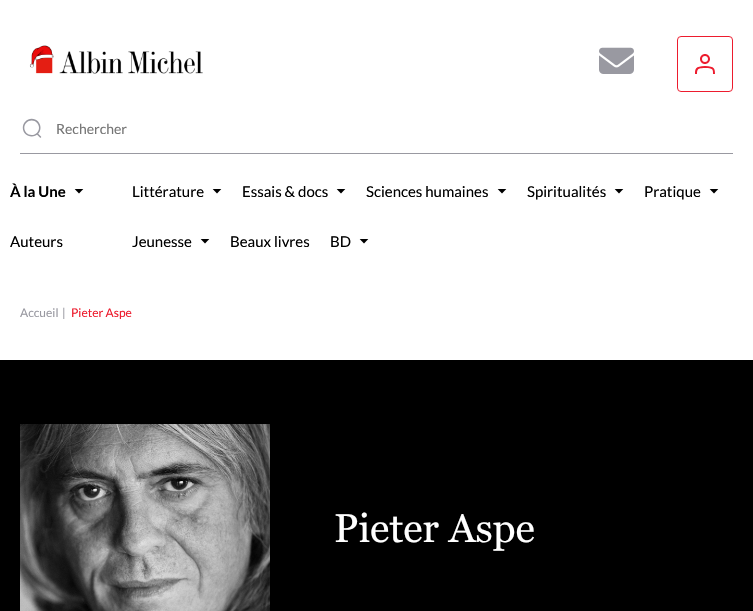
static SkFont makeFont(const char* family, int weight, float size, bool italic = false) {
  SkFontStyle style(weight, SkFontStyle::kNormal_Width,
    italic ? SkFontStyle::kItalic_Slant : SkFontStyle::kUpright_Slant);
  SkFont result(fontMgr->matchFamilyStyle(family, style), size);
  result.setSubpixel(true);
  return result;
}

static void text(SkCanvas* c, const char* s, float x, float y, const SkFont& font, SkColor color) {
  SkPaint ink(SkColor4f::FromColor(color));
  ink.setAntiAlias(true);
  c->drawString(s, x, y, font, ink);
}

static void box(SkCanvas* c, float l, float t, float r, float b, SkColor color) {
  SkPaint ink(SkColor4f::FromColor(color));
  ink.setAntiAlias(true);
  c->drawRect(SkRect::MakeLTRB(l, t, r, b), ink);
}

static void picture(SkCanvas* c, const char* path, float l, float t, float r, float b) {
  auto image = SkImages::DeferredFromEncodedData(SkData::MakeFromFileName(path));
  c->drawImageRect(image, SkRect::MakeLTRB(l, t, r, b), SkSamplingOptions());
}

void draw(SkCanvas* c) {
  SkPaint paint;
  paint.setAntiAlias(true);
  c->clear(0xffffffff);
  picture(c, "img_01.png", 29, 45, 203, 74);
  picture(c, "img_02.png", 599, 47, 634, 74);
  paint.setStyle(SkPaint::kStroke_Style);
  paint.setStrokeWidth(1);
  paint.setColor(0xffed1c2e);
  c->drawRoundRect(SkRect::MakeLTRB(677.5f, 36.5f, 732.5f, 91.5f), 3.5f, 3.5f, paint);
  picture(c, "img_03.png", 695, 54, 715, 74);
  box(c, 20, 153, 733, 154, 0xff9999a1);
  picture(c, "img_04.png", 22, 118, 42, 138);
  SkFont face1 = makeFont("Lato", 400, 14);
  text(c, "Rechercher", 56, 134, face1, 0xff757575);
  SkFont face2 = makeFont("Lato", 700, 15);
  text(c, "À la Une", 10, 197, face2, 0xff000000);
  picture(c, "img_05.png", 74, 189, 84, 194);
  SkFont face3 = makeFont("Lato", 400, 15);
  text(c, "Auteurs", 10, 247, face3, 0xff000000);
  text(c, "Littérature", 132, 197, face3, 0xff000000);
  picture(c, "img_05.png", 212, 189, 222, 194);
  text(c, "Essais & docs", 242, 197, face3, 0xff000000);
  picture(c, "img_05.png", 336, 189, 346, 194);
  text(c, "Sciences humaines", 366, 197, face3, 0xff000000);
  picture(c, "img_05.png", 497, 189, 507, 194);
  text(c, "Spiritualités", 527, 197, face3, 0xff000000);
  picture(c, "img_05.png", 614, 189, 624, 194);
  text(c, "Pratique", 644, 197, face3, 0xff000000);
  picture(c, "img_05.png", 709, 189, 719, 194);
  text(c, "Jeunesse", 132, 247, face3, 0xff000000);
  picture(c, "img_05.png", 200, 239, 210, 244);
  text(c, "Beaux livres", 230, 247, face3, 0xff000000);
  text(c, "BD", 330, 247, face3, 0xff000000);
  picture(c, "img_05.png", 359, 239, 369, 244);
  SkFont face4 = makeFont("Lato", 400, 12);
  text(c, "Accueil", 20, 317, face4, 0xff9999a1);
  text(c, "|", 62, 317, face4, 0xff9999a1);
  text(c, "Pieter Aspe", 71, 317, face4, 0xffed1c2e);
  box(c, 0, 360, 753, 611, 0xff000000);
  picture(c, "img_06.png", 20, 424, 270, 611);
  SkFont face5 = makeFont("Georgia", 400, 40);
  text(c, "Pieter Aspe", 334, 542, face5, 0xffffffff);
}
